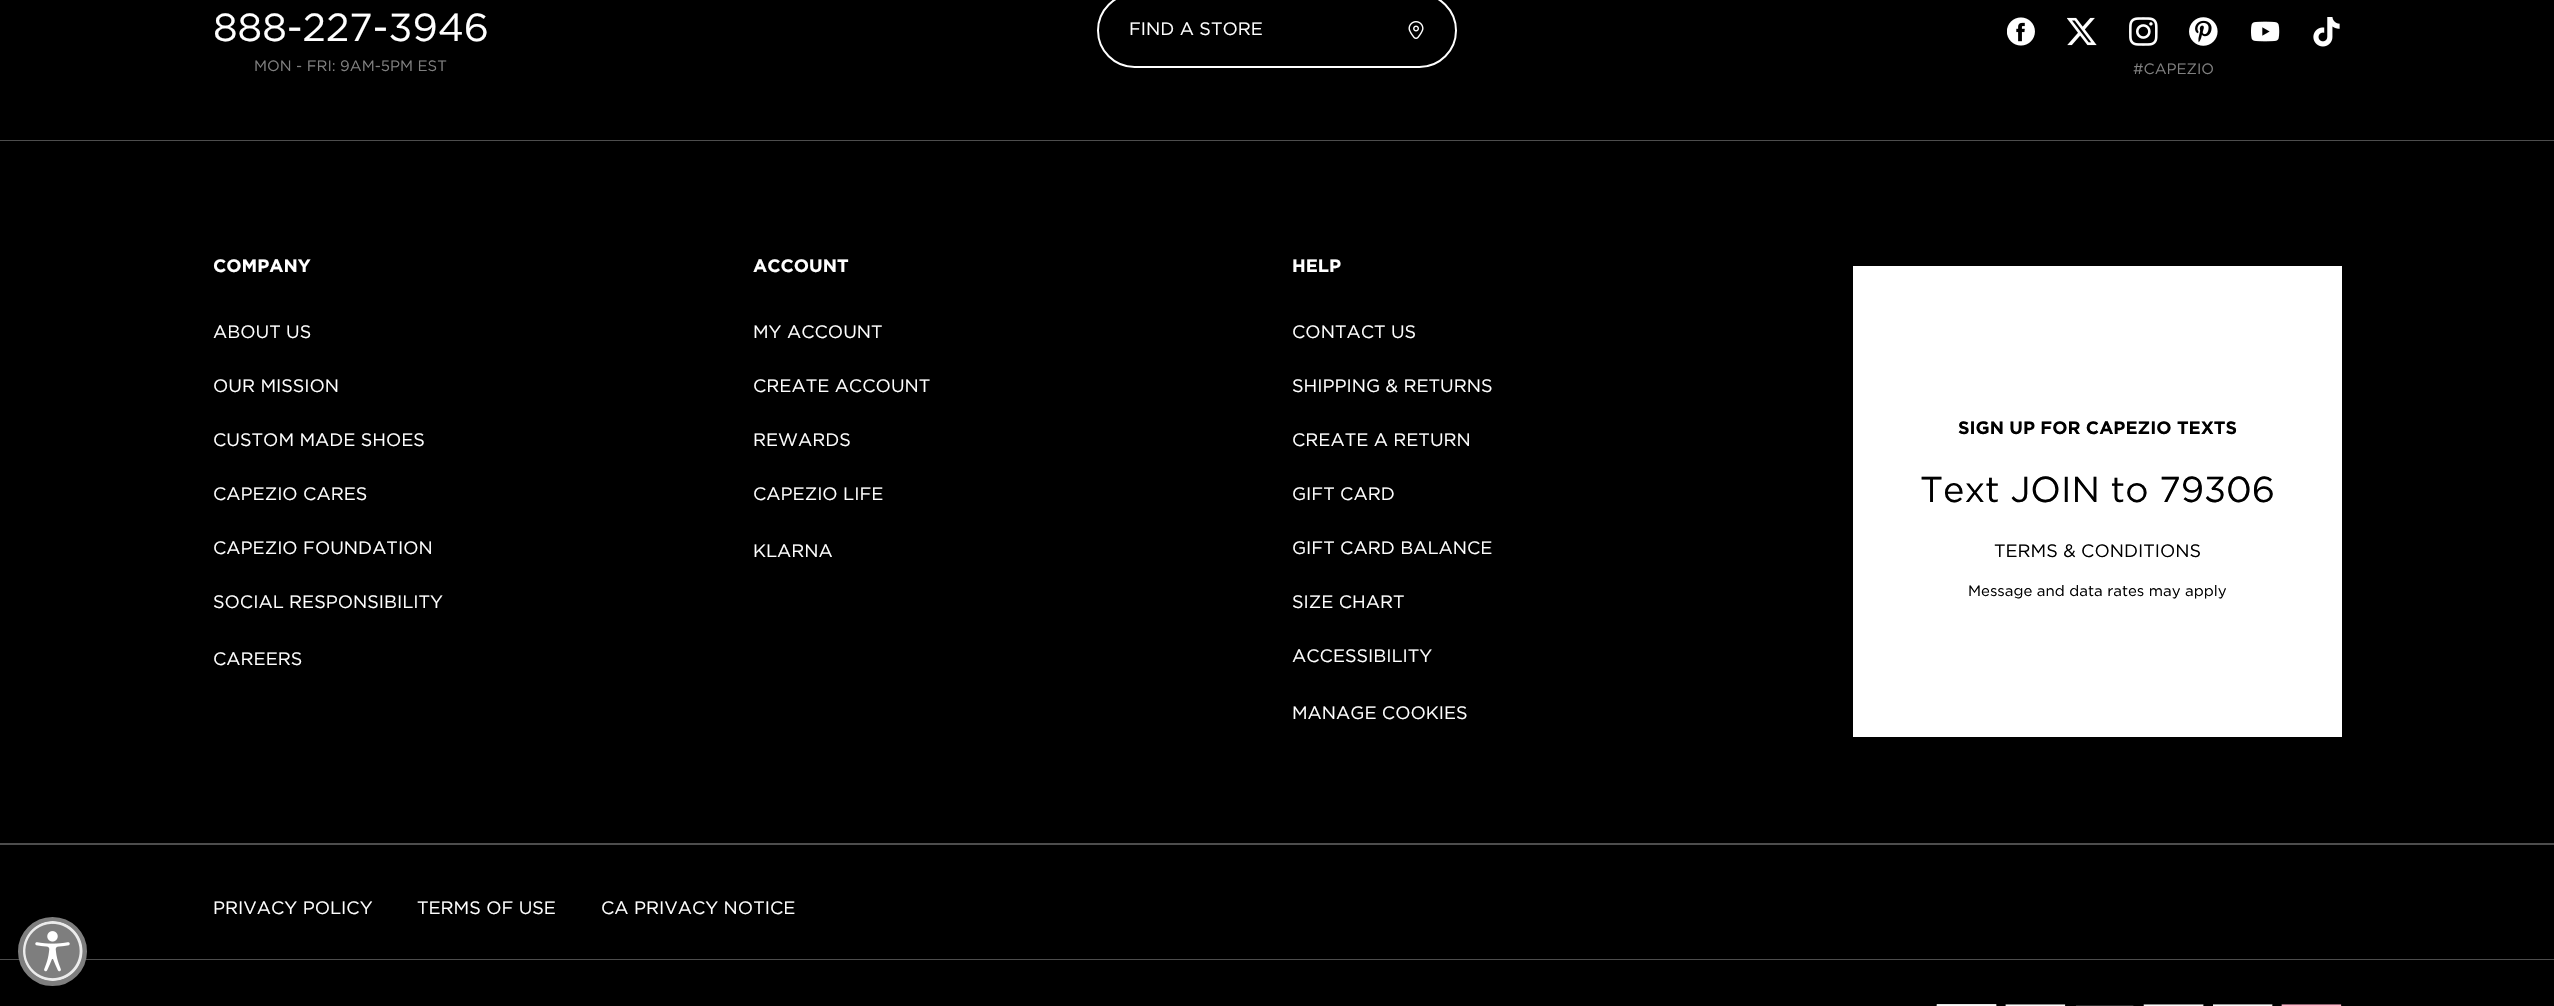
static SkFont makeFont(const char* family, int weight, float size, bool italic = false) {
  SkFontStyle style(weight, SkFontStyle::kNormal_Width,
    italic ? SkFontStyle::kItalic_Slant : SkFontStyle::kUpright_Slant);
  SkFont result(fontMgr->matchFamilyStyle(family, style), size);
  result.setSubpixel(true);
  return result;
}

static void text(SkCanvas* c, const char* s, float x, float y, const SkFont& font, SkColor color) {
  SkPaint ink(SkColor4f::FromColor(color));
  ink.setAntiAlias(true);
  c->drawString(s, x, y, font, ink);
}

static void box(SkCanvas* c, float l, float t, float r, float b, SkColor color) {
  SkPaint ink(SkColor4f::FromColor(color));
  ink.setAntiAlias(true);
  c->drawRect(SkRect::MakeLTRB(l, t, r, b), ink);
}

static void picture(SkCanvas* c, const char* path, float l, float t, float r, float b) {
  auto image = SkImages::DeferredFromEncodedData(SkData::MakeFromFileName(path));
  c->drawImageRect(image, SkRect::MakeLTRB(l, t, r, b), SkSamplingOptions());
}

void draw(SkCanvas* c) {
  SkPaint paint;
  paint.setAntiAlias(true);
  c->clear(0xff000000);
  box(c, 0, 140, 2554, 141, 0xff4d4d4d);
  SkFont face1 = makeFont("Gotham", 400, 39);
  text(c, "888-227-3946", 213, 41, face1, 0xffffffff);
  SkFont face2 = makeFont("Gotham", 400, 15);
  text(c, "MON - FRI: 9AM-5PM EST", 254, 71, face2, 0xff808080);
  paint.setStyle(SkPaint::kStroke_Style);
  paint.setStrokeWidth(2);
  paint.setColor(0xffffffff);
  c->drawRoundRect(SkRect::MakeLTRB(1098, -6, 1456, 67), 36.5f, 36.5f, paint);
  SkFont face3 = makeFont("Gotham", 400, 18);
  text(c, "FIND A STORE", 1129, 35, face3, 0xffffffff);
  picture(c, "img_01.png", 1408, 21, 1424, 39);
  picture(c, "img_02.png", 2007, 17, 2035, 46);
  picture(c, "img_03.png", 2067, 17, 2097, 46);
  picture(c, "img_04.png", 2129, 17, 2158, 46);
  picture(c, "img_05.png", 2189, 17, 2218, 46);
  picture(c, "img_06.png", 2251, 21, 2280, 42);
  picture(c, "img_07.png", 2313, 17, 2340, 47);
  text(c, "#CAPEZIO", 2133, 74, face2, 0xff808080);
  box(c, 0, 843, 2554, 845, 0xff4d4d4d);
  SkFont face4 = makeFont("Gotham", 700, 18);
  text(c, "COMPANY", 213, 272, face4, 0xffffffff);
  text(c, "ABOUT US", 213, 338, face3, 0xffffffff);
  text(c, "OUR MISSION", 213, 392, face3, 0xffffffff);
  text(c, "CUSTOM MADE SHOES", 213, 446, face3, 0xffffffff);
  text(c, "CAPEZIO CARES", 213, 500, face3, 0xffffffff);
  text(c, "CAPEZIO FOUNDATION", 213, 554, face3, 0xffffffff);
  text(c, "SOCIAL RESPONSIBILITY", 213, 608, face3, 0xffffffff);
  text(c, "CAREERS", 213, 665, face3, 0xffffffff);
  text(c, "ACCOUNT", 753, 272, face4, 0xffffffff);
  text(c, "MY ACCOUNT", 753, 338, face3, 0xffffffff);
  text(c, "CREATE ACCOUNT", 753, 392, face3, 0xffffffff);
  text(c, "REWARDS", 753, 446, face3, 0xffffffff);
  text(c, "CAPEZIO LIFE", 753, 500, face3, 0xffffffff);
  text(c, "KLARNA", 753, 557, face3, 0xffffffff);
  text(c, "HELP", 1292, 272, face4, 0xffffffff);
  text(c, "CONTACT US", 1292, 338, face3, 0xffffffff);
  text(c, "SHIPPING & RETURNS", 1292, 392, face3, 0xffffffff);
  text(c, "CREATE A RETURN", 1292, 446, face3, 0xffffffff);
  text(c, "GIFT CARD", 1292, 500, face3, 0xffffffff);
  text(c, "GIFT CARD BALANCE", 1292, 554, face3, 0xffffffff);
  text(c, "SIZE CHART", 1292, 608, face3, 0xffffffff);
  text(c, "ACCESSIBILITY", 1292, 662, face3, 0xffffffff);
  text(c, "MANAGE COOKIES", 1292, 719, face3, 0xffffffff);
  box(c, 1853, 266, 2342, 737, 0xffffffff);
  text(c, "SIGN UP FOR CAPEZIO TEXTS", 1958, 434, face4, 0xff000000);
  SkFont face5 = makeFont("Gotham", 400, 36);
  text(c, "Text JOIN to 79306", 1920, 502, face5, 0xff000000);
  text(c, "TERMS & CONDITIONS", 1994, 557, face3, 0xff000000);
  text(c, "Message and data rates may apply", 1968, 596, face2, 0xff000000);
  box(c, 0, 959, 2554, 960, 0xff4d4d4d);
  text(c, "PRIVACY POLICY", 213, 914, face3, 0xffffffff);
  text(c, "TERMS OF USE", 417, 914, face3, 0xffffffff);
  text(c, "CA PRIVACY NOTICE", 601, 914, face3, 0xffffffff);
  picture(c, "img_08.png", 1936, 1004, 1997, 1006);
  picture(c, "img_09.png", 2005, 1004, 2066, 1006);
  picture(c, "img_10.png", 2076, 1005, 2134, 1006);
  picture(c, "img_11.png", 2143, 1004, 2204, 1006);
  picture(c, "img_12.png", 2213, 1004, 2273, 1006);
  picture(c, "img_13.png", 2281, 1004, 2342, 1006);
  paint.setStyle(SkPaint::kFill_Style);
  paint.setColor(0xff7e7e7e);
  c->drawCircle(52.5f, 951.5f, 32, paint);
  paint.setStyle(SkPaint::kStroke_Style);
  paint.setStrokeWidth(5);
  c->drawCircle(52.5f, 951.5f, 32, paint);
  picture(c, "img_14.png", 23, 921, 83, 981);
}
